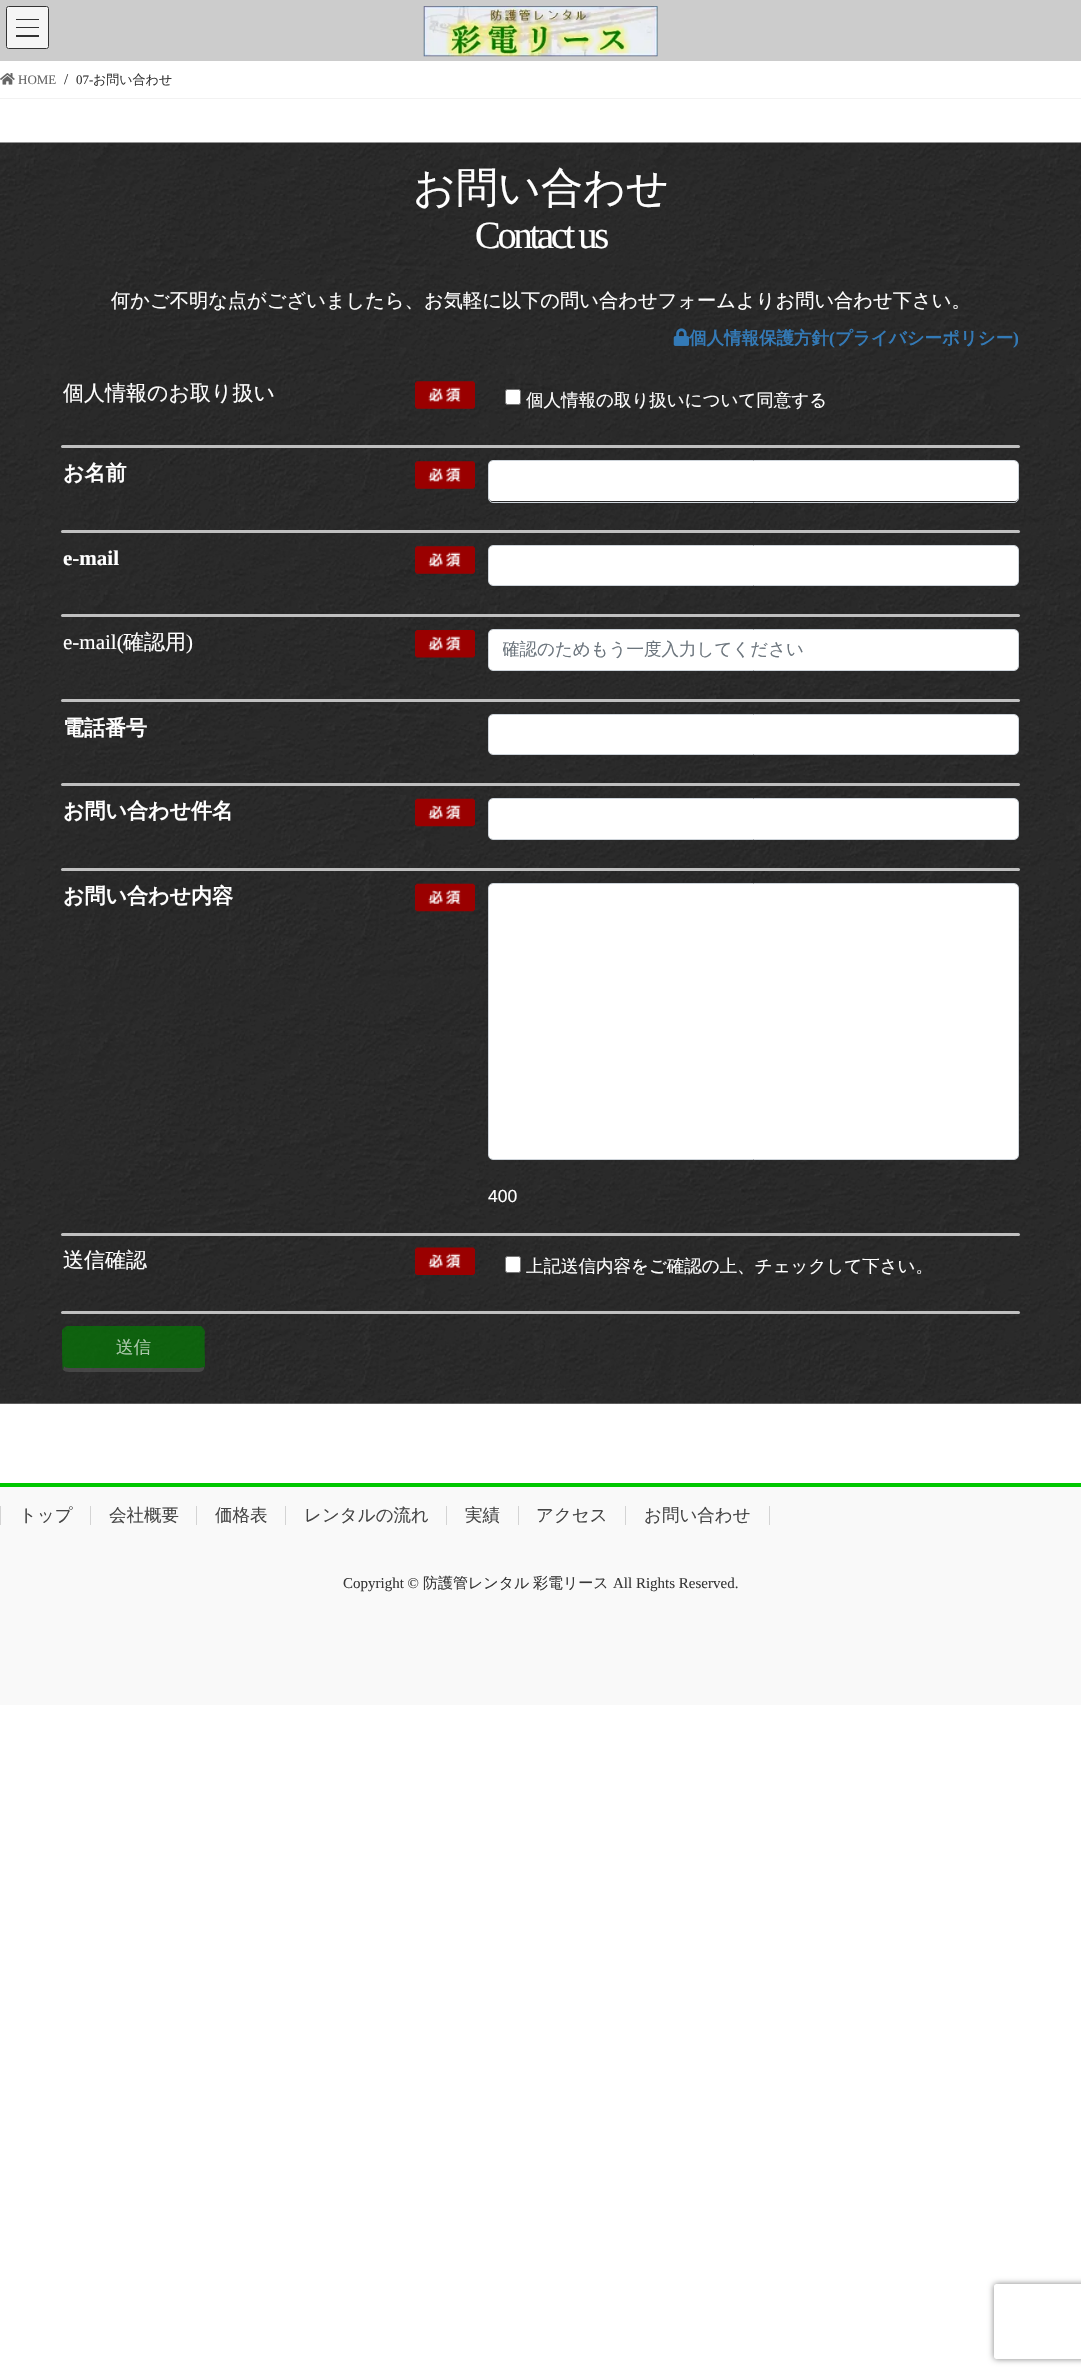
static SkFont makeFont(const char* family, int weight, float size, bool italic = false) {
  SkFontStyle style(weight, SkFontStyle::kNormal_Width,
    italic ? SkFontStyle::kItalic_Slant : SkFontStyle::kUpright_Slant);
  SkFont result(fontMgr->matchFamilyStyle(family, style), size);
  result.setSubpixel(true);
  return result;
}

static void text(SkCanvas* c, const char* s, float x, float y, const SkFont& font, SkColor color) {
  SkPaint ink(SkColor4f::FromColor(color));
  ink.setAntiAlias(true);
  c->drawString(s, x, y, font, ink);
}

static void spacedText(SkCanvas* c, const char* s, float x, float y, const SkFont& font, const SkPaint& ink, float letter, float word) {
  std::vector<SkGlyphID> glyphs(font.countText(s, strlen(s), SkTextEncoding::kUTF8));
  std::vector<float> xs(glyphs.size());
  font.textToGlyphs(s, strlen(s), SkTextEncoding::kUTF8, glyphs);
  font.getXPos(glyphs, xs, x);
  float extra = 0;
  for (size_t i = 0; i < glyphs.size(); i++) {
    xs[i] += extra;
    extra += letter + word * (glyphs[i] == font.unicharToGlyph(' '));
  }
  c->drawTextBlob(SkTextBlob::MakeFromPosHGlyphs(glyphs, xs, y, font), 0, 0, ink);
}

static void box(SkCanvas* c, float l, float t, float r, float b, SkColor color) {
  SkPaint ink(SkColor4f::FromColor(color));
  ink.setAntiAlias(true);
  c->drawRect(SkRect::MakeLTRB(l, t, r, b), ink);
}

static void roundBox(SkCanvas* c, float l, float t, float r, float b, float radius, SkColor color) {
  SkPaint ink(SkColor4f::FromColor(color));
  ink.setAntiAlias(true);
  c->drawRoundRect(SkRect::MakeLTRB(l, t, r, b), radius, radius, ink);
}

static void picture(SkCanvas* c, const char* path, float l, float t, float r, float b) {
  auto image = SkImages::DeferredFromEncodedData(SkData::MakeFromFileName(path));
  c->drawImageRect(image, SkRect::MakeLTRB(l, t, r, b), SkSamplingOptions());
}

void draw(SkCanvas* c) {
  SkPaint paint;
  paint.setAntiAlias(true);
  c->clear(0xffffffff);
  box(c, 0, 0, 1081, 61, 0xffcccccc);
  picture(c, "img_01.png", 423, 6, 658, 57);
  roundBox(c, 6, 6, 49, 49, 2.5f, 0xfff5f5f5);
  box(c, 16, 19, 39, 20, 0xff313131);
  box(c, 16, 27, 39, 28, 0xff313131);
  box(c, 16, 35, 39, 37, 0xff313131);
  paint.setStyle(SkPaint::kStroke_Style);
  paint.setStrokeWidth(1);
  paint.setColor(0xff333333);
  c->drawRoundRect(SkRect::MakeLTRB(6.5f, 6.5f, 48.5f, 48.5f), 2, 2, paint);
  box(c, 0, 98, 1081, 99, 0xfff2f2f2);
  picture(c, "img_02.png", 0, 73, 15, 85);
  SkFont face1 = makeFont("Liberation Serif", 400, 13);
  text(c, "HOME", 18, 84, face1, 0xff666666);
  SkFont face2 = makeFont("Liberation Serif", 400, 15);
  text(c, "/", 64, 84, face2, 0xff373737);
  text(c, "07-", 76, 84, face1, 0xff373737);
  SkFont face3 = makeFont("WenQuanYi Zen Hei", 500, 13);
  text(c, "お問い合わせ", 93, 84, face3, 0xff373737);
  picture(c, "img_03.png", 0, 142, 1081, 1404);
  SkFont face4 = makeFont("WenQuanYi Zen Hei", 500, 42);
  text(c, "お問い合わせ", 413, 202, face4, 0xffffffff);
  SkFont face5 = makeFont("Liberation Serif", 400, 38.5f);
  paint.setStyle(SkPaint::kFill_Style);
  paint.setColor(0xffffffff);
  spacedText(c, "Contact us", 475, 248, face5, paint, -3.25f, 0);
  SkFont face6 = makeFont("WenQuanYi Zen Hei", 500, 19.25f);
  text(c, "何かご不明な点がございましたら、お気軽に以下の問い合わせフォームよりお問い合わせ下さい。", 111, 307, face6, 0xffffffff);
  picture(c, "img_04.png", 673, 328, 690, 346);
  SkFont face7 = makeFont("WenQuanYi Zen Hei", 700, 17.5f);
  text(c, "個人情報保護方針", 689, 344, face7, 0xff337ab7);
  SkFont face8 = makeFont("Liberation Serif", 700, 17.5f);
  text(c, "(", 829, 344, face8, 0xff337ab7);
  text(c, "プライバシーポリシー", 835, 344, face7, 0xff337ab7);
  text(c, ")", 1013, 344, face8, 0xff337ab7);
  SkFont face9 = makeFont("WenQuanYi Zen Hei", 500, 21);
  text(c, "個人情報のお取り扱い", 63, 400, face9, 0xffffffff);
  picture(c, "img_05.png", 415, 381, 475, 409);
  c->drawRoundRect(SkRect::MakeLTRB(505.5f, 389.5f, 520.5f, 404.5f), 2, 2, paint);
  paint.setStyle(SkPaint::kStroke_Style);
  paint.setColor(0xff767676);
  c->drawRoundRect(SkRect::MakeLTRB(505.5f, 389.5f, 520.5f, 404.5f), 2, 2, paint);
  SkFont face10 = makeFont("WenQuanYi Zen Hei", 500, 17.5f);
  text(c, "個人情報の取り扱いについて同意する", 526, 406, face10, 0xffffffff);
  roundBox(c, 61, 445, 1020, 448, 1.5f, 0xffc0c0c0);
  SkFont face11 = makeFont("WenQuanYi Zen Hei", 700, 21);
  text(c, "お名前", 63, 480, face11, 0xffffffff);
  picture(c, "img_06.png", 415, 461, 475, 489);
  roundBox(c, 489, 461, 1018, 501, 3, 0xffffffff);
  paint.setColor(0xffced4da);
  c->drawRoundRect(SkRect::MakeLTRB(488.5f, 460.5f, 1018.5f, 502.5f), 4.5f, 4.5f, paint);
  roundBox(c, 61, 530, 1020, 533, 1.5f, 0xffc0c0c0);
  SkFont face12 = makeFont("Liberation Serif", 700, 21);
  text(c, "e-mail", 63, 565, face12, 0xffffffff);
  picture(c, "img_07.png", 415, 546, 475, 574);
  roundBox(c, 489, 546, 1018, 585, 3, 0xffffffff);
  c->drawRoundRect(SkRect::MakeLTRB(488.5f, 545.5f, 1018.5f, 585.5f), 4.5f, 4.5f, paint);
  roundBox(c, 61, 614, 1020, 617, 1.5f, 0xffc0c0c0);
  SkFont face13 = makeFont("Liberation Serif", 400, 21);
  text(c, "e-mail(", 63, 649, face13, 0xffffffff);
  text(c, "確認用", 123, 649, face9, 0xffffffff);
  text(c, ")", 186, 649, face13, 0xffffffff);
  picture(c, "img_08.png", 415, 630, 475, 658);
  roundBox(c, 489, 630, 1018, 670, 3, 0xffffffff);
  c->drawRoundRect(SkRect::MakeLTRB(488.5f, 629.5f, 1018.5f, 670.5f), 4.5f, 4.5f, paint);
  c->save();
  c->clipRect(SkRect::MakeLTRB(503, 639, 1005, 661));
  text(c, "確認のためもう一度入力してください", 502, 655, face10, 0xff6c757d);
  c->restore();
  roundBox(c, 61, 699, 1020, 702, 1.5f, 0xffc0c0c0);
  text(c, "電話番号", 63, 735, face11, 0xffffffff);
  roundBox(c, 489, 715, 1018, 754, 3, 0xffffffff);
  c->drawRoundRect(SkRect::MakeLTRB(488.5f, 714.5f, 1018.5f, 754.5f), 4.5f, 4.5f, paint);
  roundBox(c, 61, 783, 1020, 786, 1.5f, 0xffc0c0c0);
  text(c, "お問い合わせ件名", 63, 818, face11, 0xffffffff);
  picture(c, "img_09.png", 415, 798, 475, 827);
  roundBox(c, 489, 799, 1018, 839, 3, 0xffffffff);
  c->drawRoundRect(SkRect::MakeLTRB(488.5f, 798.5f, 1018.5f, 839.5f), 4.5f, 4.5f, paint);
  roundBox(c, 61, 868, 1020, 871, 1.5f, 0xffc0c0c0);
  text(c, "お問い合わせ内容", 63, 903, face11, 0xffffffff);
  picture(c, "img_10.png", 415, 883, 475, 912);
  roundBox(c, 489, 884, 1018, 1159, 3, 0xffffffff);
  c->drawRoundRect(SkRect::MakeLTRB(488.5f, 883.5f, 1018.5f, 1159.5f), 4.5f, 4.5f, paint);
  SkFont face14 = makeFont("Liberation Sans", 400, 17.5f);
  text(c, "400", 488, 1202, face14, 0xffffffff);
  roundBox(c, 61, 1233, 1020, 1236, 1.5f, 0xffc0c0c0);
  text(c, "送信確認", 63, 1267, face9, 0xffffffff);
  picture(c, "img_11.png", 415, 1247, 475, 1275);
  paint.setStyle(SkPaint::kFill_Style);
  paint.setColor(0xffffffff);
  c->drawRoundRect(SkRect::MakeLTRB(505.5f, 1256.5f, 520.5f, 1272.5f), 2, 2, paint);
  paint.setStyle(SkPaint::kStroke_Style);
  paint.setColor(0xff767676);
  c->drawRoundRect(SkRect::MakeLTRB(505.5f, 1256.5f, 520.5f, 1272.5f), 2, 2, paint);
  text(c, "上記送信内容をご確認の上、チェックして下さい。", 526, 1272, face10, 0xffffffff);
  roundBox(c, 61, 1311, 1020, 1314, 1.5f, 0xffc0c0c0);
  paint.setStyle(SkPaint::kFill_Style);
  paint.setColor(0xa6008000);
  c->drawPath(SkPathBuilder().moveTo(69, 1328).lineTo(199, 1328).cubicTo(202, 1328, 204, 1330, 204, 1332).lineTo(204, 1366).cubicTo(204, 1367, 202, 1368, 199, 1368).lineTo(69, 1368).cubicTo(66, 1368, 64, 1367, 64, 1366).lineTo(64, 1332).cubicTo(64, 1330, 66, 1328, 69, 1328).close().detach(), paint);
  c->drawPath(SkPathBuilder().moveTo(69, 1328).lineTo(65, 1329).lineTo(64, 1328).lineTo(67, 1326).lineTo(201, 1326).lineTo(203, 1328).lineTo(202, 1329).lineTo(199, 1328).close().detach(), paint);
  c->drawPath(SkPathBuilder().moveTo(205, 1366).lineTo(205, 1332).cubicTo(205, 1331, 204, 1329, 203, 1328).lineTo(202, 1329).lineTo(204, 1331).cubicTo(205, 1334, 204, 1366, 204, 1367).lineTo(204, 1369).close().detach(), paint);
  paint.setColor(0xa6555555);
  c->drawPath(SkPathBuilder().moveTo(204, 1369).cubicTo(203, 1371, 201, 1372, 199, 1372).lineTo(69, 1372).cubicTo(67, 1372, 64, 1371, 63, 1370).lineTo(64, 1366).cubicTo(64, 1367, 66, 1368, 69, 1368).lineTo(199, 1368).cubicTo(201, 1368, 203, 1367, 204, 1367).close().detach(), paint);
  paint.setColor(0xa6008000);
  c->drawPath(SkPathBuilder().moveTo(62, 1330).lineTo(64, 1328).lineTo(65, 1329).lineTo(64, 1331).lineTo(64, 1366).lineTo(63, 1370).cubicTo(62, 1368, 62, 1335, 62, 1330).close().detach(), paint);
  text(c, "送信", 116, 1353, face10, 0xffabc8ab);
  box(c, 0, 1487, 1081, 1705, 0xfff9f9f9);
  box(c, 0, 1483, 1081, 1487, 0xff00c800);
  text(c, "トップ", 19, 1521, face10, 0xff464646);
  box(c, 0, 1506, 1, 1525, 0xffd4d4d4);
  text(c, "会社概要", 109, 1521, face10, 0xff464646);
  box(c, 90, 1506, 91, 1525, 0xffd4d4d4);
  text(c, "価格表", 215, 1521, face10, 0xff464646);
  box(c, 196, 1506, 197, 1525, 0xffd4d4d4);
  text(c, "レンタルの流れ", 304, 1521, face10, 0xff464646);
  box(c, 285, 1506, 286, 1525, 0xffd4d4d4);
  text(c, "実績", 465, 1521, face10, 0xff464646);
  box(c, 446, 1506, 447, 1525, 0xffd4d4d4);
  text(c, "アクセス", 536, 1521, face10, 0xff464646);
  box(c, 518, 1506, 519, 1525, 0xffd4d4d4);
  text(c, "お問い合わせ", 644, 1521, face10, 0xff464646);
  box(c, 769, 1506, 770, 1525, 0xffd4d4d4);
  box(c, 625, 1506, 626, 1525, 0xffd4d4d4);
  text(c, "Copyright ©", 343, 1588, face2, 0xff373737);
  SkFont face15 = makeFont("WenQuanYi Zen Hei", 500, 15);
  text(c, "防護管レンタル", 423, 1588, face15, 0xff373737);
  text(c, "彩電リース", 533, 1588, face15, 0xff373737);
  text(c, "All Rights Reserved.", 613, 1588, face2, 0xff373737);
  c->save();
  c->clipPath(SkPathBuilder(SkPathFillType::kEvenOdd).moveTo(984, 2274).lineTo(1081, 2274).lineTo(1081, 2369).lineTo(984, 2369).close().moveTo(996.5f, 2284).lineTo(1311.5f, 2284).cubicTo(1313, 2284, 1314, 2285, 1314, 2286.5f).lineTo(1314, 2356.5f).cubicTo(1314, 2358, 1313, 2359, 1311.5f, 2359).lineTo(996.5f, 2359).cubicTo(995, 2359, 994, 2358, 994, 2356.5f).lineTo(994, 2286.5f).cubicTo(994, 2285, 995, 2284, 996.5f, 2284).close().detach(), true);
  paint.setColor(0xff808080);
  paint.setMaskFilter(SkMaskFilter::MakeBlur(kNormal_SkBlurStyle, 3));
  c->drawRoundRect(SkRect::MakeLTRB(994, 2284, 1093, 2359), 2.5f, 2.5f, paint);
  paint.setMaskFilter(nullptr);
  c->restore();
}
